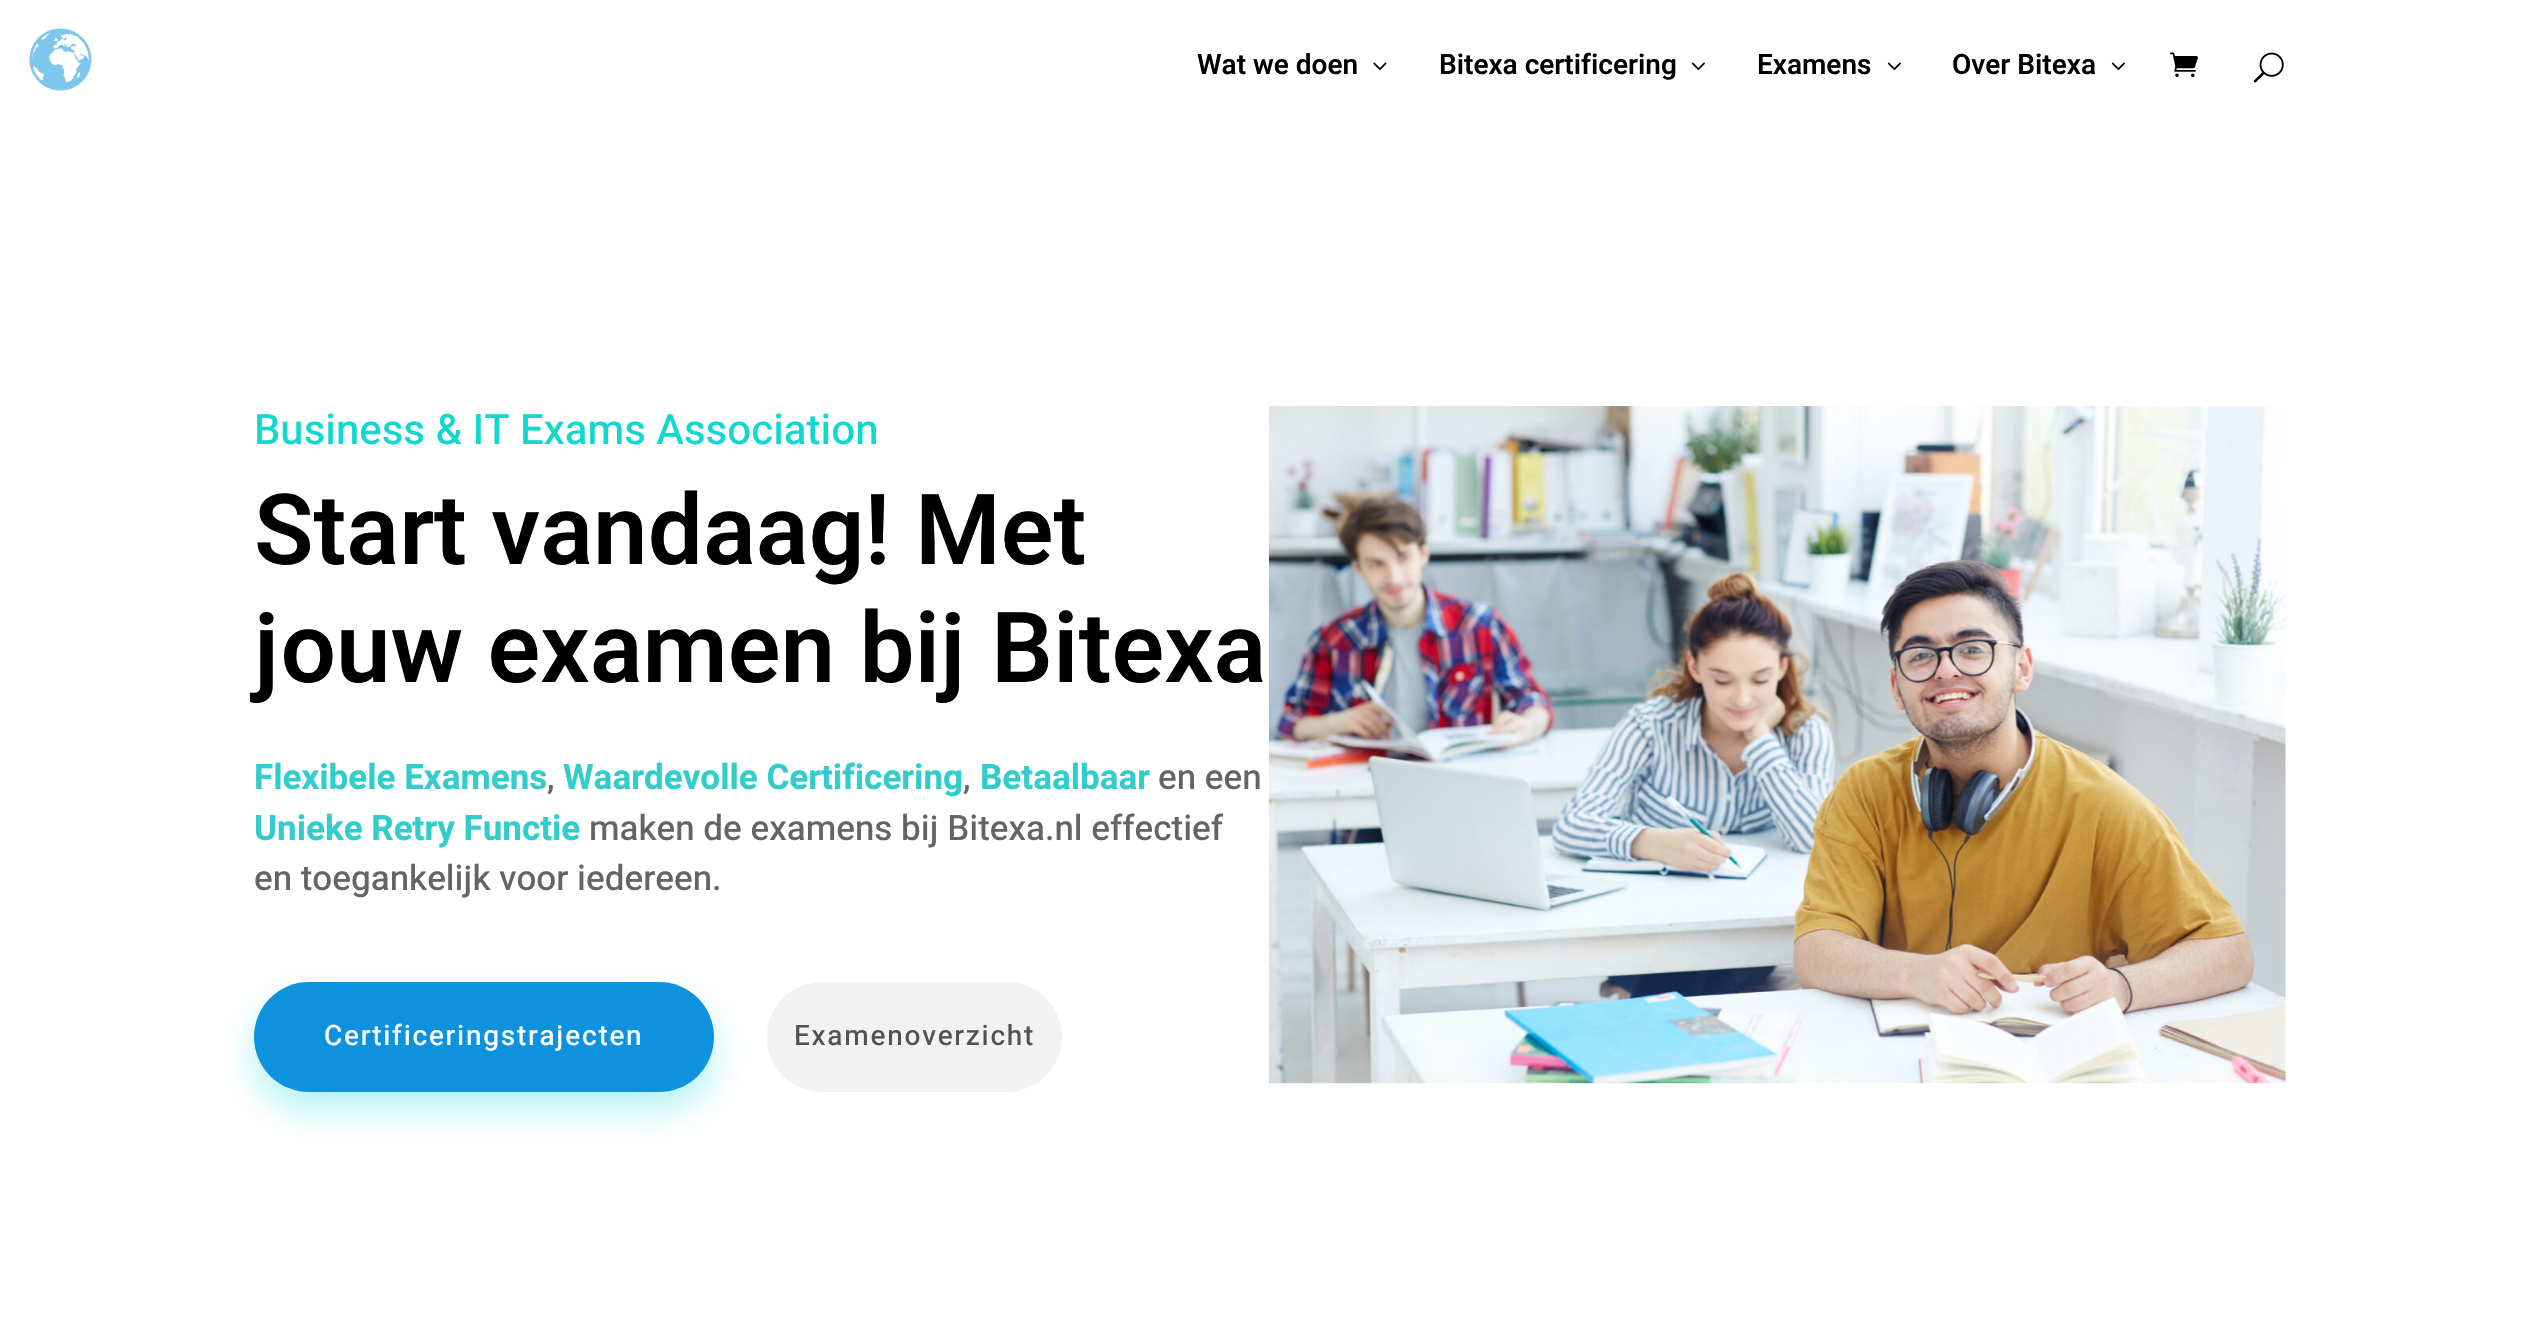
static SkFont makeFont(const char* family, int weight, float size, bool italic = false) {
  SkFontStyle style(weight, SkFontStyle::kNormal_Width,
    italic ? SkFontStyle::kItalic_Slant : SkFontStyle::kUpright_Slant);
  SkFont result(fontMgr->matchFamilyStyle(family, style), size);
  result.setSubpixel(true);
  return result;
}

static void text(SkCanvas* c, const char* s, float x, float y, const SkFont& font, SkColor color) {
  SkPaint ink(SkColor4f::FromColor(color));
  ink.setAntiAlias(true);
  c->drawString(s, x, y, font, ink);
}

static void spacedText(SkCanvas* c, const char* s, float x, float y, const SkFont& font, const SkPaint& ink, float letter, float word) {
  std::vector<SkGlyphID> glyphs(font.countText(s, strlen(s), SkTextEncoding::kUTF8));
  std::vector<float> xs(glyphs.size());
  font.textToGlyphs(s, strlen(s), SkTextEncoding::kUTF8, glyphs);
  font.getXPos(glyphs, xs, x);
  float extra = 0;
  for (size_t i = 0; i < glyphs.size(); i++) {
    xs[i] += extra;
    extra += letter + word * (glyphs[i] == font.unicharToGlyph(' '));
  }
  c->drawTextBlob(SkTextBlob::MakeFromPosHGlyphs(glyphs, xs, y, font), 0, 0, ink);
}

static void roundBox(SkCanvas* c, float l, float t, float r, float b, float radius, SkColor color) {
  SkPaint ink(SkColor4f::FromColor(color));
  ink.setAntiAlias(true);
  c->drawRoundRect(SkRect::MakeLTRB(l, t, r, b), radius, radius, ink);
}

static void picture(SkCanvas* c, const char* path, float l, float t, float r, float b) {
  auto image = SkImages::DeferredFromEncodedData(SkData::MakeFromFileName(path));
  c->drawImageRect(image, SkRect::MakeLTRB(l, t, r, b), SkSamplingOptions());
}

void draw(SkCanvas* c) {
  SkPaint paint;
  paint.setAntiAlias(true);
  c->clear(0xffffffff);
  picture(c, "img_01.png", 29, 28, 92, 91);
  SkFont face1 = makeFont("Heebo", 600, 28);
  text(c, "Wat we doen", 1197, 74, face1, 0xff000000);
  picture(c, "img_02.png", 1373, 62, 1387, 70);
  text(c, "Bitexa certificering", 1439, 74, face1, 0xff000000);
  picture(c, "img_03.png", 1691, 62, 1705, 70);
  text(c, "Examens", 1757, 74, face1, 0xff000000);
  picture(c, "img_03.png", 1887, 62, 1901, 70);
  text(c, "Over Bitexa", 1952, 74, face1, 0xff000000);
  picture(c, "img_03.png", 2111, 62, 2125, 70);
  picture(c, "img_04.png", 2170, 52, 2198, 77);
  picture(c, "img_05.png", 2253, 52, 2284, 83);
  SkFont face2 = makeFont("Heebo", 500, 42);
  text(c, "Business & IT Exams Association", 254, 444, face2, 0xff0fd8d0);
  SkFont face3 = makeFont("Heebo", 600, 98);
  text(c, "Start vandaag! Met", 254, 564, face3, 0xff000000);
  text(c, "jouw examen bij Bitexa", 254, 682, face3, 0xff000000);
  SkFont face4 = makeFont("Heebo", 700, 35);
  text(c, "Flexibele Examens", 254, 789, face4, 0xff33cccc);
  SkFont face5 = makeFont("Heebo", 500, 35);
  text(c, ",", 547, 789, face5, 0xff646464);
  text(c, "Waardevolle Certificering", 563, 789, face4, 0xff33cccc);
  text(c, ",", 963, 789, face5, 0xff646464);
  text(c, "Betaalbaar", 980, 789, face4, 0xff33cccc);
  text(c, "en een", 1158, 789, face5, 0xff646464);
  text(c, "Unieke Retry Functie", 254, 840, face4, 0xff33cccc);
  text(c, "maken de examens bij Bitexa.nl effectief", 589, 840, face5, 0xff646464);
  text(c, "en toegankelijk voor iedereen.", 254, 890, face5, 0xff646464);
  paint.setColor(0x520fd8d0);
  paint.setMaskFilter(SkMaskFilter::MakeBlur(kNormal_SkBlurStyle, 17.5f));
  c->drawRoundRect(SkRect::MakeLTRB(254, 999, 714, 1110), 55.5f, 55.5f, paint);
  paint.setMaskFilter(nullptr);
  roundBox(c, 254, 982, 714, 1092, 55, 0xff0f92dd);
  SkFont face6 = makeFont("Heebo", 500, 28);
  paint.setColor(0xffffffff);
  spacedText(c, "Certificeringstrajecten", 324, 1045, face6, paint, 1.75f, 0);
  roundBox(c, 767, 982, 1062, 1092, 55, 0xfff2f2f2);
  paint.setColor(0xff525252);
  spacedText(c, "Examenoverzicht", 794, 1045, face6, paint, 1.75f, 0);
  picture(c, "img_06.png", 1269, 406, 2286, 1084);
}
